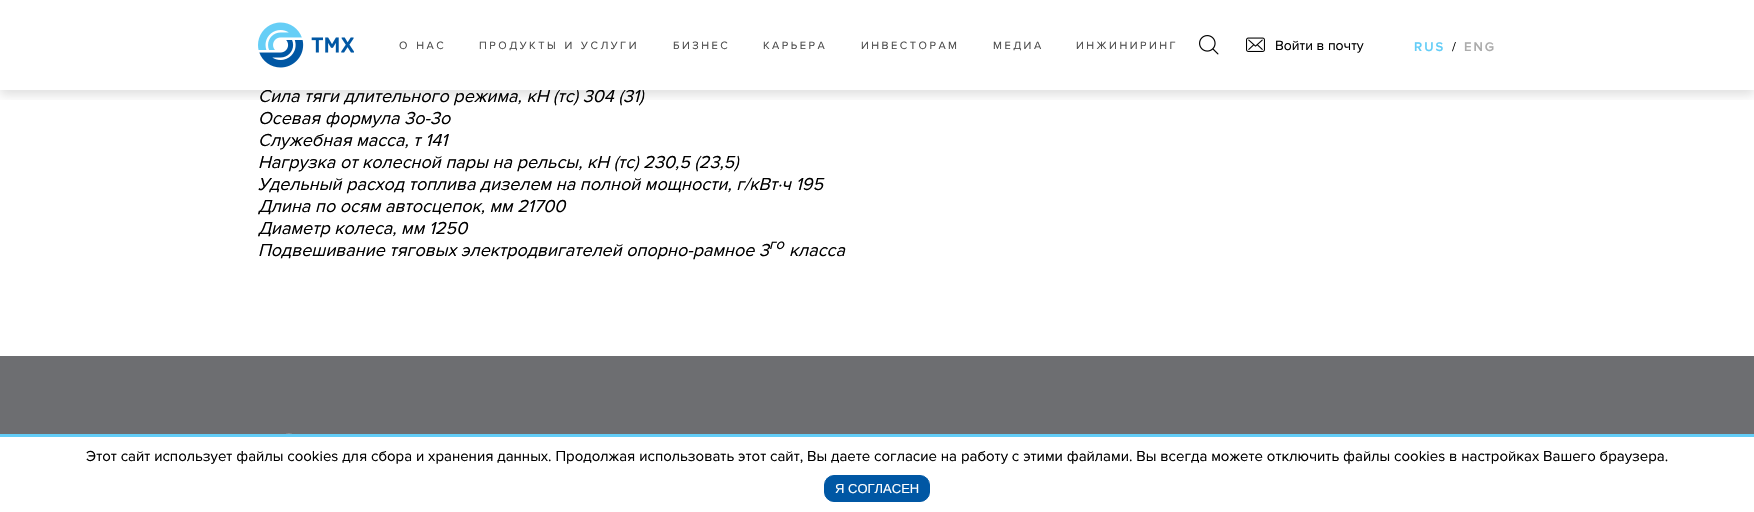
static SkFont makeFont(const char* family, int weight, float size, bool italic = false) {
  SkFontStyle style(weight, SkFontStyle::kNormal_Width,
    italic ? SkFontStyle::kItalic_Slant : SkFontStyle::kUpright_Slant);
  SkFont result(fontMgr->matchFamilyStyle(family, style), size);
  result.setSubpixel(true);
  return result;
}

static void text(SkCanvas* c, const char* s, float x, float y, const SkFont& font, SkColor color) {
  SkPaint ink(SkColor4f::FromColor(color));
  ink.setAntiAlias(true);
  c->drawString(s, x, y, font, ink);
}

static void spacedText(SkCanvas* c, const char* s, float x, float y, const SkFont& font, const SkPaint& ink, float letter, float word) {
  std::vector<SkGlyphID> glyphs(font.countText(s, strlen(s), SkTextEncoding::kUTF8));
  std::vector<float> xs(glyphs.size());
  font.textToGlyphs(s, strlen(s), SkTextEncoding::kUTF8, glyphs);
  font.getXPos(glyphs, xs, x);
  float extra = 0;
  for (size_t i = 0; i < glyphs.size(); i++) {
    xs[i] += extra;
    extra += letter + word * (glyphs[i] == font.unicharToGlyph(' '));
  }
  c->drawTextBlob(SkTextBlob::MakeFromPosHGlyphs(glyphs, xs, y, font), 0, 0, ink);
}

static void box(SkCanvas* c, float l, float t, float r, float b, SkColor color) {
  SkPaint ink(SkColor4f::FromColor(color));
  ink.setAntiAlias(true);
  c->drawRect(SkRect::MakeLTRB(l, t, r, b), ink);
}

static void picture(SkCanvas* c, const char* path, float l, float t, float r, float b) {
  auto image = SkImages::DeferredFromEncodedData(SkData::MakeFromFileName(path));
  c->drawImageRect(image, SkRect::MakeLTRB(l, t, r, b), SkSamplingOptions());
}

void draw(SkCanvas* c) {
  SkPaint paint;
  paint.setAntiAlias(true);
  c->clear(0xffffffff);
  SkFont face1 = makeFont("Proxima Nova", 400, 18, true);
  text(c, "Сила тяги длительного режима, кН (тс) 304 (31)", 258, 102, face1, 0xff000000);
  box(c, 266, 89, 644, 90, 0xffffffff);
  c->save();
  c->clipRect(SkRect::MakeLTRB(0, 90, 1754, 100));
  paint.setColor(0x1f000000);
  paint.setMaskFilter(SkMaskFilter::MakeBlur(kNormal_SkBlurStyle, 5));
  c->drawRect(SkRect::MakeLTRB(0, 5, 1754, 95), paint);
  paint.setMaskFilter(nullptr);
  c->restore();
  picture(c, "img_01.png", 258, 22, 354, 68);
  SkFont face2 = makeFont("Proxima Nova", 400, 11);
  paint.setColor(0xff4c4c4c);
  spacedText(c, "О НАС", 399, 49, face2, paint, 2.5f, 1);
  spacedText(c, "ПРОДУКТЫ И УСЛУГИ", 479, 49, face2, paint, 2.5f, 1);
  spacedText(c, "БИЗНЕС", 673, 49, face2, paint, 2.5f, 0);
  spacedText(c, "КАРЬЕРА", 763, 49, face2, paint, 2.5f, 0);
  spacedText(c, "ИНВЕСТОРАМ", 861, 49, face2, paint, 2.5f, 0);
  spacedText(c, "МЕДИА", 993, 49, face2, paint, 2.5f, 0);
  spacedText(c, "ИНЖИНИРИНГ", 1076, 49, face2, paint, 2.5f, 0);
  picture(c, "img_02.png", 1199, 35, 1219, 55);
  picture(c, "img_03.png", 1246, 37, 1265, 52);
  SkFont face3 = makeFont("Proxima Nova", 400, 14);
  text(c, "Войти в почту", 1275, 50, face3, 0xff000000);
  SkFont face4 = makeFont("Proxima Nova", 600, 13);
  paint.setColor(0xff63cdf7);
  spacedText(c, "RUS", 1414, 51, face4, paint, 2, 0);
  SkFont face5 = makeFont("Proxima Nova", 400, 13);
  text(c, "/", 1452, 51, face5, 0xff000000);
  paint.setColor(0xffacacac);
  spacedText(c, "ENG", 1464, 51, face4, paint, 2, 0);
  text(c, "Осевая формула 3о-3о", 258, 124, face1, 0xff000000);
  text(c, "Служебная масса, т 141", 258, 146, face1, 0xff000000);
  text(c, "Нагрузка от колесной пары на рельсы, кН (тс) 230,5 (23,5)", 258, 168, face1, 0xff000000);
  text(c, "Удельный расход топлива дизелем на полной мощности, г/кВт·ч 195", 258, 190, face1, 0xff000000);
  text(c, "Длина по осям автосцепок, мм 21700", 258, 212, face1, 0xff000000);
  text(c, "Диаметр колеса, мм 1250", 258, 234, face1, 0xff000000);
  text(c, "Подвешивание тяговых электродвигателей опорно-рамное 3", 258, 256, face1, 0xff000000);
  SkFont face6 = makeFont("Proxima Nova", 400, 15, true);
  text(c, "го", 769, 249, face6, 0xff000000);
  text(c, "класса", 789, 256, face1, 0xff000000);
  box(c, 0, 356, 1754, 434, 0xff6d6e71);
  picture(c, "img_04.png", 286, 433, 292, 434);
  box(c, 0, 434, 1754, 437, 0xff63cdf7);
  SkFont face7 = makeFont("Proxima Nova", 400, 15);
  text(c, "Этот сайт использует файлы cookies для сбора и хранения данных. Продолжая использовать этот сайт, Вы даете согласие на работу с этими файлами. Вы всегда можете отключить файлы cookies в настройках Вашего браузера.", 86, 461, face7, 0xff000000);
  paint.setColor(0xff0057a4);
  c->drawRoundRect(SkRect::MakeLTRB(824.5f, 475.5f, 929.5f, 501.5f), 9.5f, 9.5f, paint);
  paint.setStyle(SkPaint::kStroke_Style);
  paint.setStrokeWidth(1);
  c->drawRoundRect(SkRect::MakeLTRB(824.5f, 475.5f, 929.5f, 501.5f), 9.5f, 9.5f, paint);
  SkFont face8 = makeFont("Liberation Sans", 400, 13);
  text(c, "Я СОГЛАСЕН", 835, 493, face8, 0xffffffff);
}
